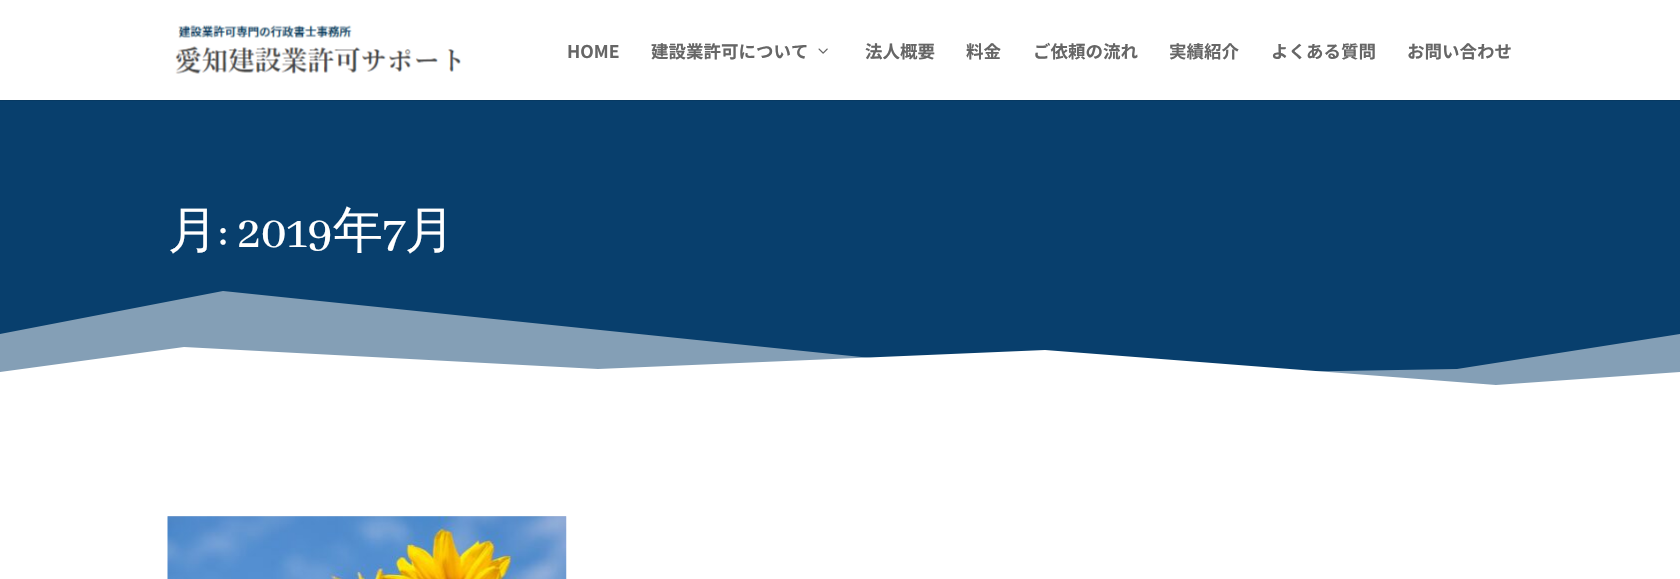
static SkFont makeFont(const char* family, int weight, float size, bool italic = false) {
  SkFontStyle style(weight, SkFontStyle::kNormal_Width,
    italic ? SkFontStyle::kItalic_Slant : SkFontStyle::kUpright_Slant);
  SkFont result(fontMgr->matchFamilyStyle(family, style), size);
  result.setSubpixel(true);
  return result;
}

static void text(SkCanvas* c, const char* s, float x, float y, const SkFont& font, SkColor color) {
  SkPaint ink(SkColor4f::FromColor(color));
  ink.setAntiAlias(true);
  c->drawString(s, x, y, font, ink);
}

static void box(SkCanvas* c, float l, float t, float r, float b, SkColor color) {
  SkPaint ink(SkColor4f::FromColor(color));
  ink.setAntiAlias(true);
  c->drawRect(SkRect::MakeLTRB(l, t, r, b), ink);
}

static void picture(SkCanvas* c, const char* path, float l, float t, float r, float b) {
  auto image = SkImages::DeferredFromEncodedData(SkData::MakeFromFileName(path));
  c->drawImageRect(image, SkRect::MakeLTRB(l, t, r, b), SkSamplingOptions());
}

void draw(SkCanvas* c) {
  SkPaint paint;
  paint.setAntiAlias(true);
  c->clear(0xffffffff);
  box(c, 0, 100, 1680, 101, 0xff073962);
  picture(c, "img_01.png", 175, 25, 461, 74);
  SkFont face1 = makeFont("Noto Sans JP", 700, 17.5f);
  text(c, "HOME", 567, 58, face1, 0xff666666);
  text(c, "建設業許可について", 651, 58, face1, 0xff666666);
  picture(c, "img_02.png", 818, 48, 828, 54);
  text(c, "法人概要", 865, 58, face1, 0xff666666);
  text(c, "料金", 966, 58, face1, 0xff666666);
  text(c, "ご依頼の流れ", 1033, 58, face1, 0xff666666);
  text(c, "実績紹介", 1169, 58, face1, 0xff666666);
  text(c, "よくある質問", 1271, 58, face1, 0xff666666);
  text(c, "お問い合わせ", 1407, 58, face1, 0xff666666);
  box(c, 0, 101, 1680, 372, 0xff083f6d);
  SkFont face2 = makeFont("WenQuanYi Zen Hei", 500, 50);
  text(c, "月", 168, 247, face2, 0xffffffff);
  SkFont face3 = makeFont("Abhaya Libre Medium", 500, 50);
  text(c, ": 2019", 218, 247, face3, 0xffffffff);
  text(c, "年", 333, 247, face2, 0xffffffff);
  text(c, "7", 383, 247, face3, 0xffffffff);
  text(c, "月", 405, 247, face2, 0xffffffff);
  paint.setColor(0xff849fb6);
  c->drawPath(SkPathBuilder().moveTo(0, 334).lineTo(223, 291).lineTo(1045, 376).lineTo(1457, 369).lineTo(1680, 334).lineTo(1680, 416).lineTo(0, 416).close().detach(), paint);
  paint.setColor(0xffffffff);
  c->drawPath(SkPathBuilder().moveTo(0, 372).lineTo(184, 347).lineTo(598, 369).lineTo(1045, 350).lineTo(1496, 385).lineTo(1680, 372).lineTo(1680, 416).lineTo(0, 416).close().detach(), paint);
  paint.setStyle(SkPaint::kStroke_Style);
  paint.setStrokeWidth(1);
  paint.setColor(0xffd8d8d8);
  c->drawRect(SkRect::MakeLTRB(168.5f, 516.5f, 565.5f, 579.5f), paint);
  picture(c, "img_03.png", 167, 516, 567, 579);
}
